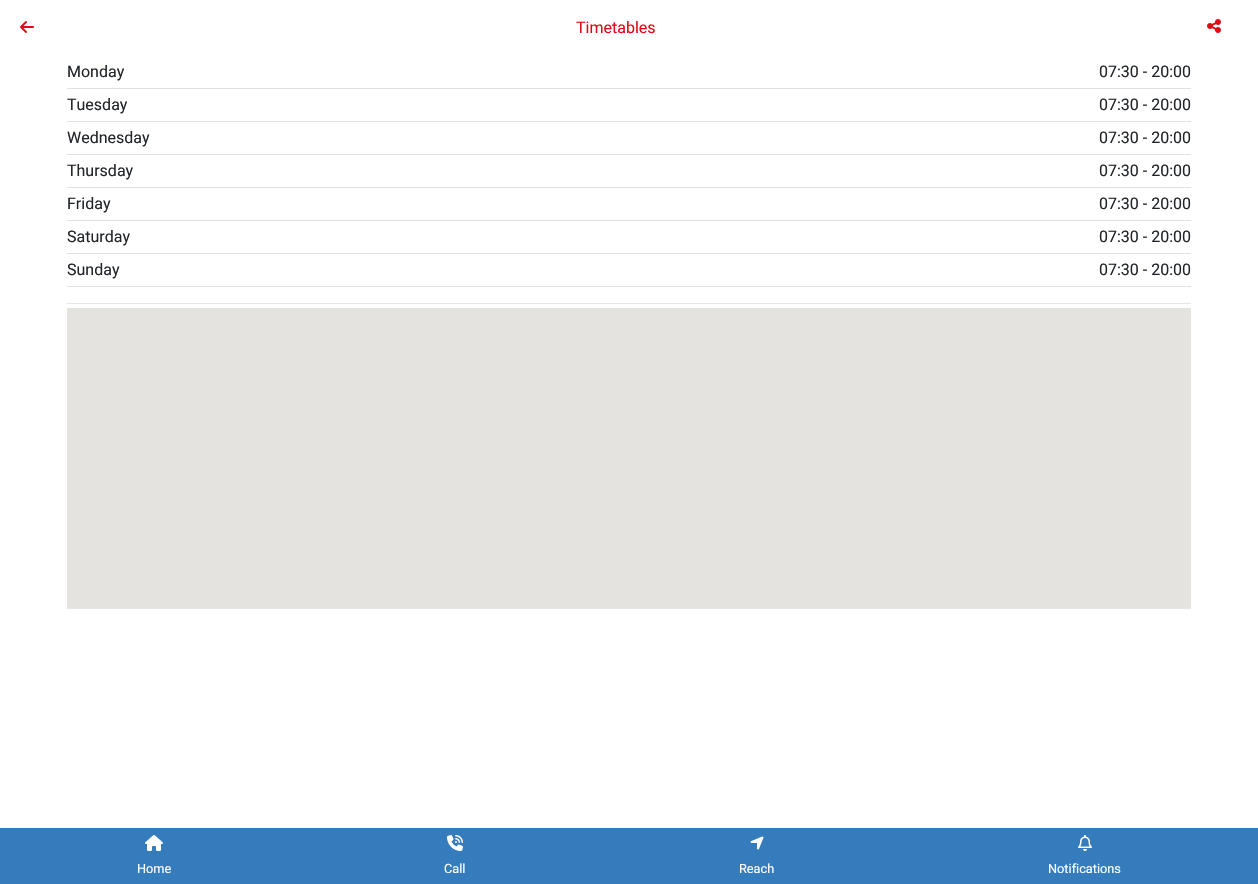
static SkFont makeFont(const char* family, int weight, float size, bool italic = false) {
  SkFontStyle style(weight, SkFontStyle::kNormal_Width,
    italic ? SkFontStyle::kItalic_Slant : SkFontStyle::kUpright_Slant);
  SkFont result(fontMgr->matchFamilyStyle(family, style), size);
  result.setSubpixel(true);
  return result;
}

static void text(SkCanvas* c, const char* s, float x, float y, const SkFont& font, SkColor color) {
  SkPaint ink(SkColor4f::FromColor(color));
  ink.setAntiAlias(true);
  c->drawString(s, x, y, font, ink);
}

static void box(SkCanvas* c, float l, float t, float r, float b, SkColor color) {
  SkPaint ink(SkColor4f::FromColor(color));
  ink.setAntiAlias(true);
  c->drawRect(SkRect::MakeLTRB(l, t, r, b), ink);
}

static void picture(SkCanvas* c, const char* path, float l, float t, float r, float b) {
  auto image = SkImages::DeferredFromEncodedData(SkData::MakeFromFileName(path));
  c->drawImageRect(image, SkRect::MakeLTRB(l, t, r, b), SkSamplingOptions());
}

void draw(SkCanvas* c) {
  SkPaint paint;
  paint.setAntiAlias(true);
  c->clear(0xffffffff);
  picture(c, "img_01.png", 20, 21, 34, 33);
  SkFont face1 = makeFont("Roboto", 400, 16);
  text(c, "Timetables", 576, 33, face1, 0xffe00a17);
  picture(c, "img_02.png", 1207, 19, 1221, 33);
  box(c, 67, 88, 1191, 89, 0xffdee2e6);
  text(c, "Monday", 67, 77, face1, 0xff212529);
  text(c, "07:30 - 20:00", 1099, 77, face1, 0xff212529);
  box(c, 67, 121, 1191, 122, 0xffdee2e6);
  text(c, "Tuesday", 67, 110, face1, 0xff212529);
  text(c, "07:30 - 20:00", 1099, 110, face1, 0xff212529);
  box(c, 67, 154, 1191, 155, 0xffdee2e6);
  text(c, "Wednesday", 67, 143, face1, 0xff212529);
  text(c, "07:30 - 20:00", 1099, 143, face1, 0xff212529);
  box(c, 67, 187, 1191, 188, 0xffdee2e6);
  text(c, "Thursday", 67, 176, face1, 0xff212529);
  text(c, "07:30 - 20:00", 1099, 176, face1, 0xff212529);
  box(c, 67, 220, 1191, 221, 0xffdee2e6);
  text(c, "Friday", 67, 209, face1, 0xff212529);
  text(c, "07:30 - 20:00", 1099, 209, face1, 0xff212529);
  box(c, 67, 253, 1191, 254, 0xffdee2e6);
  text(c, "Saturday", 67, 242, face1, 0xff212529);
  text(c, "07:30 - 20:00", 1099, 242, face1, 0xff212529);
  box(c, 67, 286, 1191, 287, 0xffdee2e6);
  text(c, "Sunday", 67, 275, face1, 0xff212529);
  text(c, "07:30 - 20:00", 1099, 275, face1, 0xff212529);
  box(c, 67, 303, 1191, 304, 0xffe6e6e6);
  box(c, 67, 308, 1191, 608, 0xffe5e3df);
  box(c, 67, 608, 1191, 609, 0xffe6e6e6);
  box(c, 0, 828, 1258, 884, 0xff357cbc);
  picture(c, "img_03.png", 145, 835, 163, 851);
  SkFont face2 = makeFont("Roboto", 400, 12.75f);
  text(c, "Home", 137, 873, face2, 0xffffffff);
  picture(c, "img_04.png", 447, 835, 463, 851);
  text(c, "Call", 444, 873, face2, 0xffffffff);
  picture(c, "img_05.png", 750, 836, 764, 850);
  text(c, "Reach", 739, 873, face2, 0xffffffff);
  picture(c, "img_06.png", 1078, 835, 1092, 851);
  text(c, "Notifications", 1048, 873, face2, 0xffffffff);
}
